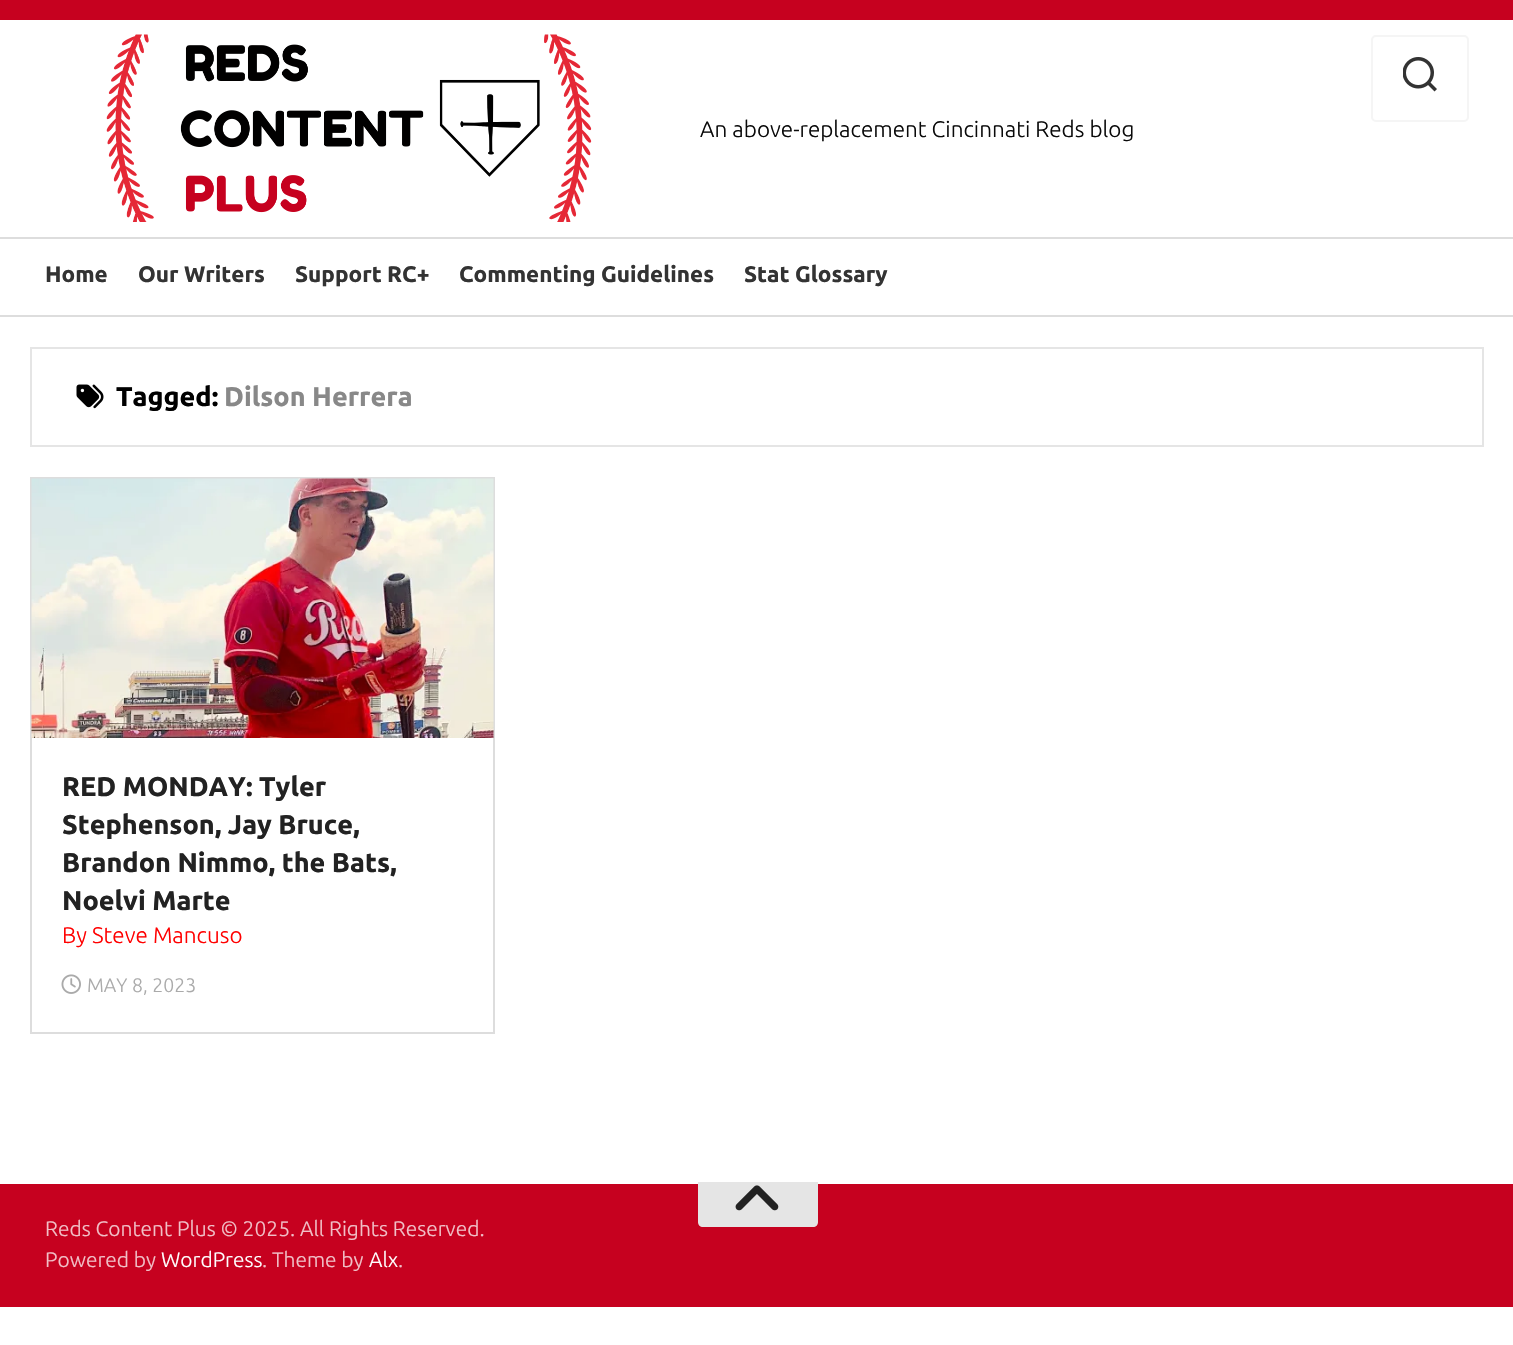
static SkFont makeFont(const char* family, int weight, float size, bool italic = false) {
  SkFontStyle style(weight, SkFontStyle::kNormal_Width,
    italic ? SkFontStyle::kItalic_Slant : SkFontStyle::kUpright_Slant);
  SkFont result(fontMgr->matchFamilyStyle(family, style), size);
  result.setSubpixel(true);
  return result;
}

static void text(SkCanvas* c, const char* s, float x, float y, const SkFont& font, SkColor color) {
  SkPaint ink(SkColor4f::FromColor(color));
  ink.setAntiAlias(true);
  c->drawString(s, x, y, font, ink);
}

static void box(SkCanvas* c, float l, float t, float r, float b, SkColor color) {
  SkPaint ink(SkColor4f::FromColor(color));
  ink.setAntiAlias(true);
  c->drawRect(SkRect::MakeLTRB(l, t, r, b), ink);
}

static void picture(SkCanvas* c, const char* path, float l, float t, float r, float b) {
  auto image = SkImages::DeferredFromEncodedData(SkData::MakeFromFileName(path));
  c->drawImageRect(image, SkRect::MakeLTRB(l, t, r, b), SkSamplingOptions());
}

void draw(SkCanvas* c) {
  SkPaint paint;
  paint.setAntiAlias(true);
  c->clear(0xffffffff);
  box(c, 0, 0, 1513, 20, 0xffc6011f);
  box(c, 0, 237, 1513, 239, 0xffdddddd);
  picture(c, "img_01.png", 106, 34, 592, 222);
  paint.setStyle(SkPaint::kStroke_Style);
  paint.setStrokeWidth(2);
  paint.setColor(0xfff5f5f5);
  c->drawRoundRect(SkRect::MakeLTRB(1372, 36, 1468, 121), 4, 4, paint);
  picture(c, "img_02.png", 1403, 57, 1437, 92);
  SkFont face1 = makeFont("Ubuntu", 300, 22.5f);
  text(c, "An above-replacement Cincinnati Reds blog", 700, 137, face1, 0xff0a0a0a);
  box(c, 0, 315, 1513, 317, 0xffdddddd);
  SkFont face2 = makeFont("Ubuntu", 700, 22.5f);
  text(c, "Home", 45, 282, face2, 0xff333333);
  text(c, "Our Writers", 138, 282, face2, 0xff333333);
  text(c, "Support RC+", 295, 282, face2, 0xff333333);
  text(c, "Commenting Guidelines", 459, 282, face2, 0xff333333);
  text(c, "Stat Glossary", 744, 282, face2, 0xff333333);
  paint.setColor(0xffe5e5e5);
  c->drawRect(SkRect::MakeLTRB(31, 348, 1483, 446), paint);
  picture(c, "img_03.png", 76, 384, 104, 409);
  SkFont face3 = makeFont("Ubuntu", 700, 27);
  text(c, "Tagged:", 116, 406, face3, 0xff000000);
  text(c, "Dilson Herrera", 224, 406, face3, 0xff888888);
  paint.setColor(0xffdddddd);
  c->drawRect(SkRect::MakeLTRB(31, 478, 494, 1033), paint);
  picture(c, "img_04.png", 31, 478, 494, 738);
  text(c, "RED MONDAY: Tyler", 62, 796, face3, 0xff222222);
  text(c, "Stephenson, Jay Bruce,", 62, 834, face3, 0xff222222);
  text(c, "Brandon Nimmo, the Bats,", 62, 872, face3, 0xff222222);
  text(c, "Noelvi Marte", 62, 910, face3, 0xff222222);
  text(c, "By Steve Mancuso", 62, 943, face1, 0xffff0000);
  picture(c, "img_05.png", 61, 974, 81, 994);
  SkFont face4 = makeFont("Ubuntu", 300, 19.5f);
  text(c, "MAY 8, 2023", 87, 992, face4, 0xffaaaaaa);
  box(c, 0, 1184, 1513, 1307, 0xffc6011f);
  paint.setStyle(SkPaint::kFill_Style);
  paint.setColor(0xffe5e5e5);
  c->drawPath(SkPathBuilder().moveTo(698, 1182).lineTo(818, 1182).lineTo(818, 1222).cubicTo(818, 1225, 816, 1227, 813, 1227).lineTo(703, 1227).cubicTo(700, 1227, 698, 1225, 698, 1222).close().detach(), paint);
  picture(c, "img_06.png", 735, 1185, 779, 1211);
  SkFont face5 = makeFont("Ubuntu", 300, 21);
  text(c, "Reds Content Plus © 2025. All Rights Reserved.", 45, 1236, face5, 0xfff1c0c7);
  text(c, "Powered by", 45, 1267, face5, 0xfff1c0c7);
  text(c, "WordPress", 161, 1267, face5, 0xffffffff);
  text(c, ". Theme by", 262, 1267, face5, 0xfff1c0c7);
  text(c, "Alx", 369, 1267, face5, 0xffffffff);
  text(c, ".", 398, 1267, face5, 0xfff1c0c7);
}
